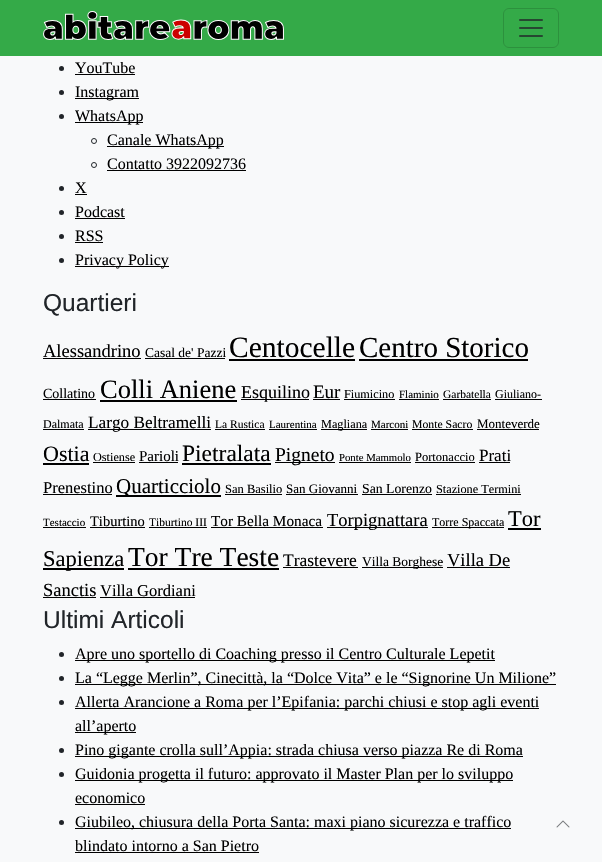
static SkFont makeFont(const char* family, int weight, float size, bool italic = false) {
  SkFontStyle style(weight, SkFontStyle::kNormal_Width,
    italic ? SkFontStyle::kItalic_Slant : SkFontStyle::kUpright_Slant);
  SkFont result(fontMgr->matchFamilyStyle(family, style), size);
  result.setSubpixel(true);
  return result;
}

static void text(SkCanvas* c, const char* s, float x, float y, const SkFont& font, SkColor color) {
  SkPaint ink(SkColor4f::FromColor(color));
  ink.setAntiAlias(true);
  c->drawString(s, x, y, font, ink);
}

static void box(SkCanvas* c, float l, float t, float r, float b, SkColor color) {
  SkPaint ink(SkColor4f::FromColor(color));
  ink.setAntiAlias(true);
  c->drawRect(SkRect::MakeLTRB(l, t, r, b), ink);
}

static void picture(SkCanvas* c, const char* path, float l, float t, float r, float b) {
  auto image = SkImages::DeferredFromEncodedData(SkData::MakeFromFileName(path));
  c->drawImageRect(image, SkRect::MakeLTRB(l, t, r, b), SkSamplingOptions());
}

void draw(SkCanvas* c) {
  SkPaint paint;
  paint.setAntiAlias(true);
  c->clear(0xfff8f9fa);
  box(c, 0, 0, 602, 56, 0xff34aa48);
  picture(c, "img_01.png", 43, 11, 284, 40);
  paint.setStyle(SkPaint::kStroke_Style);
  paint.setStrokeWidth(1);
  paint.setColor(0xff2c913d);
  c->drawRoundRect(SkRect::MakeLTRB(503.5f, 8.5f, 558.5f, 47.5f), 5.5f, 5.5f, paint);
  picture(c, "img_02.png", 519, 19, 543, 37);
  paint.setStyle(SkPaint::kFill_Style);
  paint.setColor(0xff212529);
  c->drawCircle(61.5f, 68.5f, 2.5f, paint);
  SkFont face1 = makeFont("Liberation Serif", 400, 16);
  text(c, "YouTube", 75, 73, face1, 0xff000000);
  box(c, 75, 74, 135, 75, 0xff000000);
  c->drawCircle(61.5f, 92.5f, 2.5f, paint);
  box(c, 75, 98, 139, 99, 0xff000000);
  text(c, "Instagram", 75, 97, face1, 0xff000000);
  c->drawCircle(61.5f, 116.5f, 2.5f, paint);
  box(c, 75, 122, 143, 123, 0xff000000);
  text(c, "WhatsApp", 75, 121, face1, 0xff000000);
  paint.setStyle(SkPaint::kStroke_Style);
  c->drawCircle(94, 141, 2.5f, paint);
  box(c, 107, 146, 224, 147, 0xff000000);
  text(c, "Canale WhatsApp", 107, 145, face1, 0xff000000);
  c->drawCircle(94, 165, 2.5f, paint);
  text(c, "Contatto 3922092736", 107, 169, face1, 0xff000000);
  box(c, 107, 170, 246, 171, 0xff000000);
  paint.setStyle(SkPaint::kFill_Style);
  c->drawCircle(61.5f, 188.5f, 2.5f, paint);
  text(c, "X", 75, 193, face1, 0xff000000);
  box(c, 75, 194, 87, 195, 0xff000000);
  c->drawCircle(61.5f, 212.5f, 2.5f, paint);
  text(c, "Podcast", 75, 217, face1, 0xff000000);
  box(c, 75, 218, 125, 219, 0xff000000);
  c->drawCircle(61.5f, 236.5f, 2.5f, paint);
  text(c, "RSS", 75, 241, face1, 0xff000000);
  box(c, 75, 242, 103, 243, 0xff000000);
  c->drawCircle(61.5f, 260.5f, 2.5f, paint);
  box(c, 75, 266, 169, 267, 0xff000000);
  text(c, "Privacy Policy", 75, 265, face1, 0xff000000);
  SkFont face2 = makeFont("Liberation Sans", 400, 24.5f);
  text(c, "Quartieri", 43, 311, face2, 0xff212529);
  SkFont face3 = makeFont("Liberation Serif", 400, 18.5f);
  text(c, "Alessandrino", 43, 357, face3, 0xff000000);
  box(c, 43, 358, 141, 359, 0xff000000);
  SkFont face4 = makeFont("Liberation Serif", 400, 13.5f);
  text(c, "Casal de' Pazzi", 145, 357, face4, 0xff000000);
  box(c, 145, 358, 225, 359, 0xff000000);
  SkFont face5 = makeFont("Liberation Serif", 400, 29.5f);
  text(c, "Centocelle", 229, 357, face5, 0xff000000);
  box(c, 229, 359, 355, 361, 0xff000000);
  SkFont face6 = makeFont("Liberation Serif", 400, 29);
  text(c, "Centro Storico", 359, 357, face6, 0xff000000);
  box(c, 359, 359, 528, 361, 0xff000000);
  SkFont face7 = makeFont("Liberation Serif", 400, 14);
  text(c, "Collatino", 43, 398, face7, 0xff000000);
  box(c, 43, 399, 96, 400, 0xff000000);
  SkFont face8 = makeFont("Liberation Serif", 400, 26.5f);
  text(c, "Colli Aniene", 100, 398, face8, 0xff000000);
  box(c, 100, 400, 237, 402, 0xff000000);
  box(c, 241, 399, 309, 400, 0xff000000);
  SkFont face9 = makeFont("Liberation Serif", 400, 18);
  text(c, "Esquilino", 241, 398, face9, 0xff000000);
  SkFont face10 = makeFont("Liberation Serif", 400, 19);
  text(c, "Eur", 313, 398, face10, 0xff000000);
  box(c, 313, 399, 340, 400, 0xff000000);
  SkFont face11 = makeFont("Liberation Serif", 400, 12.25f);
  text(c, "Fiumicino", 344, 398, face11, 0xff000000);
  box(c, 344, 399, 395, 400, 0xff000000);
  SkFont face12 = makeFont("Liberation Serif", 400, 11);
  text(c, "Flaminio", 399, 398, face12, 0xff000000);
  box(c, 399, 399, 439, 400, 0xff000000);
  SkFont face13 = makeFont("Liberation Serif", 400, 11.5f);
  text(c, "Garbatella", 443, 398, face13, 0xff000000);
  box(c, 443, 399, 491, 400, 0xff000000);
  SkFont face14 = makeFont("Liberation Serif", 400, 12);
  text(c, "Giuliano-", 495, 398, face14, 0xff000000);
  box(c, 495, 399, 542, 400, 0xff000000);
  text(c, "Dalmata", 43, 428, face14, 0xff000000);
  box(c, 43, 429, 84, 430, 0xff000000);
  box(c, 88, 429, 211, 430, 0xff000000);
  SkFont face15 = makeFont("Liberation Serif", 400, 17.25f);
  text(c, "Largo Beltramelli", 88, 428, face15, 0xff000000);
  text(c, "La Rustica", 215, 428, face13, 0xff000000);
  box(c, 215, 429, 265, 430, 0xff000000);
  text(c, "Laurentina", 269, 428, face12, 0xff000000);
  box(c, 269, 429, 317, 430, 0xff000000);
  box(c, 321, 429, 367, 430, 0xff000000);
  text(c, "Magliana", 321, 428, face11, 0xff000000);
  text(c, "Marconi", 371, 428, face12, 0xff000000);
  box(c, 371, 429, 408, 430, 0xff000000);
  SkFont face16 = makeFont("Liberation Serif", 400, 11.75f);
  text(c, "Monte Sacro", 412, 428, face16, 0xff000000);
  box(c, 412, 429, 473, 430, 0xff000000);
  SkFont face17 = makeFont("Liberation Serif", 400, 13);
  text(c, "Monteverde", 477, 428, face17, 0xff000000);
  box(c, 477, 429, 539, 430, 0xff000000);
  SkFont face18 = makeFont("Liberation Serif", 400, 22);
  text(c, "Ostia", 43, 461, face18, 0xff000000);
  box(c, 43, 463, 89, 465, 0xff000000);
  text(c, "Ostiense", 93, 461, face11, 0xff000000);
  box(c, 93, 462, 135, 463, 0xff000000);
  SkFont face19 = makeFont("Liberation Serif", 400, 15);
  text(c, "Parioli", 139, 461, face19, 0xff000000);
  box(c, 139, 462, 178, 463, 0xff000000);
  SkFont face20 = makeFont("Liberation Serif", 400, 23.5f);
  text(c, "Pietralata", 182, 461, face20, 0xff000000);
  box(c, 182, 463, 271, 465, 0xff000000);
  box(c, 275, 462, 335, 463, 0xff000000);
  SkFont face21 = makeFont("Liberation Serif", 400, 19.5f);
  text(c, "Pigneto", 275, 461, face21, 0xff000000);
  SkFont face22 = makeFont("Liberation Serif", 400, 10.75f);
  text(c, "Ponte Mammolo", 339, 461, face22, 0xff000000);
  box(c, 339, 462, 411, 463, 0xff000000);
  SkFont face23 = makeFont("Liberation Serif", 400, 12.5f);
  text(c, "Portonaccio", 415, 461, face23, 0xff000000);
  box(c, 415, 462, 475, 463, 0xff000000);
  SkFont face24 = makeFont("Liberation Serif", 400, 17);
  text(c, "Prati", 479, 461, face24, 0xff000000);
  box(c, 479, 462, 510, 463, 0xff000000);
  SkFont face25 = makeFont("Liberation Serif", 400, 16.5f);
  text(c, "Prenestino", 43, 493, face25, 0xff000000);
  box(c, 43, 494, 112, 495, 0xff000000);
  box(c, 116, 495, 221, 497, 0xff000000);
  SkFont face26 = makeFont("Liberation Serif", 400, 21);
  text(c, "Quarticciolo", 116, 493, face26, 0xff000000);
  text(c, "San Basilio", 225, 493, face23, 0xff000000);
  box(c, 225, 494, 282, 495, 0xff000000);
  text(c, "San Giovanni", 286, 493, face17, 0xff000000);
  box(c, 286, 494, 358, 495, 0xff000000);
  SkFont face27 = makeFont("Liberation Serif", 400, 13.75f);
  text(c, "San Lorenzo", 362, 493, face27, 0xff000000);
  box(c, 362, 494, 432, 495, 0xff000000);
  text(c, "Stazione Termini", 436, 493, face11, 0xff000000);
  box(c, 436, 494, 521, 495, 0xff000000);
  text(c, "Testaccio", 43, 526, face12, 0xff000000);
  box(c, 43, 527, 86, 528, 0xff000000);
  SkFont face28 = makeFont("Liberation Serif", 400, 14.5f);
  text(c, "Tiburtino", 90, 526, face28, 0xff000000);
  box(c, 90, 527, 145, 528, 0xff000000);
  text(c, "Tiburtino III", 149, 526, face13, 0xff000000);
  box(c, 149, 527, 207, 528, 0xff000000);
  SkFont face29 = makeFont("Liberation Serif", 400, 15.25f);
  text(c, "Tor Bella Monaca", 211, 526, face29, 0xff000000);
  box(c, 211, 527, 323, 528, 0xff000000);
  box(c, 327, 527, 428, 528, 0xff000000);
  text(c, "Torpignattara", 327, 526, face3, 0xff000000);
  box(c, 432, 527, 504, 528, 0xff000000);
  text(c, "Torre Spaccata", 432, 526, face14, 0xff000000);
  SkFont face30 = makeFont("Liberation Serif", 400, 22.5f);
  text(c, "Tor", 508, 526, face30, 0xff000000);
  box(c, 508, 528, 541, 530, 0xff000000);
  box(c, 43, 568, 124, 570, 0xff000000);
  text(c, "Sapienza", 43, 566, face30, 0xff000000);
  SkFont face31 = makeFont("Liberation Serif", 400, 27.5f);
  text(c, "Tor Tre Teste", 128, 566, face31, 0xff000000);
  box(c, 128, 568, 279, 570, 0xff000000);
  SkFont face32 = makeFont("Liberation Serif", 400, 17.5f);
  text(c, "Trastevere", 283, 566, face32, 0xff000000);
  box(c, 283, 567, 358, 568, 0xff000000);
  box(c, 362, 567, 443, 568, 0xff000000);
  text(c, "Villa Borghese", 362, 566, face4, 0xff000000);
  text(c, "Villa De", 447, 566, face3, 0xff000000);
  box(c, 447, 567, 510, 568, 0xff000000);
  text(c, "Sanctis", 43, 596, face3, 0xff000000);
  box(c, 43, 597, 96, 598, 0xff000000);
  text(c, "Villa Gordiani", 100, 596, face25, 0xff000000);
  box(c, 100, 597, 195, 598, 0xff000000);
  text(c, "Ultimi Articoli", 43, 628, face2, 0xff212529);
  c->drawCircle(61.5f, 654.5f, 2.5f, paint);
  box(c, 75, 660, 495, 661, 0xff000000);
  text(c, "Apre uno sportello di Coaching presso il Centro Culturale Lepetit", 75, 659, face1, 0xff000000);
  c->drawCircle(61.5f, 678.5f, 2.5f, paint);
  box(c, 75, 684, 556, 685, 0xff000000);
  text(c, "La “Legge Merlin”, Cinecittà, la “Dolce Vita” e le “Signorine Un Milione”", 75, 683, face1, 0xff000000);
  c->drawCircle(61.5f, 702.5f, 2.5f, paint);
  box(c, 75, 708, 539, 709, 0xff000000);
  text(c, "Allerta Arancione a Roma per l’Epifania: parchi chiusi e stop agli eventi", 75, 707, face1, 0xff000000);
  box(c, 75, 732, 136, 733, 0xff000000);
  text(c, "all’aperto", 75, 731, face1, 0xff000000);
  c->drawCircle(61.5f, 750.5f, 2.5f, paint);
  box(c, 75, 756, 523, 757, 0xff000000);
  text(c, "Pino gigante crolla sull’Appia: strada chiusa verso piazza Re di Roma", 75, 755, face1, 0xff000000);
  c->drawCircle(61.5f, 774.5f, 2.5f, paint);
  box(c, 75, 780, 513, 781, 0xff000000);
  text(c, "Guidonia progetta il futuro: approvato il Master Plan per lo sviluppo", 75, 779, face1, 0xff000000);
  text(c, "economico", 75, 803, face1, 0xff000000);
  box(c, 75, 804, 145, 805, 0xff000000);
  c->drawCircle(61.5f, 822.5f, 2.5f, paint);
  box(c, 75, 828, 511, 829, 0xff000000);
  text(c, "Giubileo, chiusura della Porta Santa: maxi piano sicurezza e traffico", 75, 827, face1, 0xff000000);
  text(c, "blindato intorno a San Pietro", 75, 851, face1, 0xff000000);
  box(c, 75, 852, 259, 853, 0xff000000);
  picture(c, "img_03.png", 556, 820, 570, 828);
}
